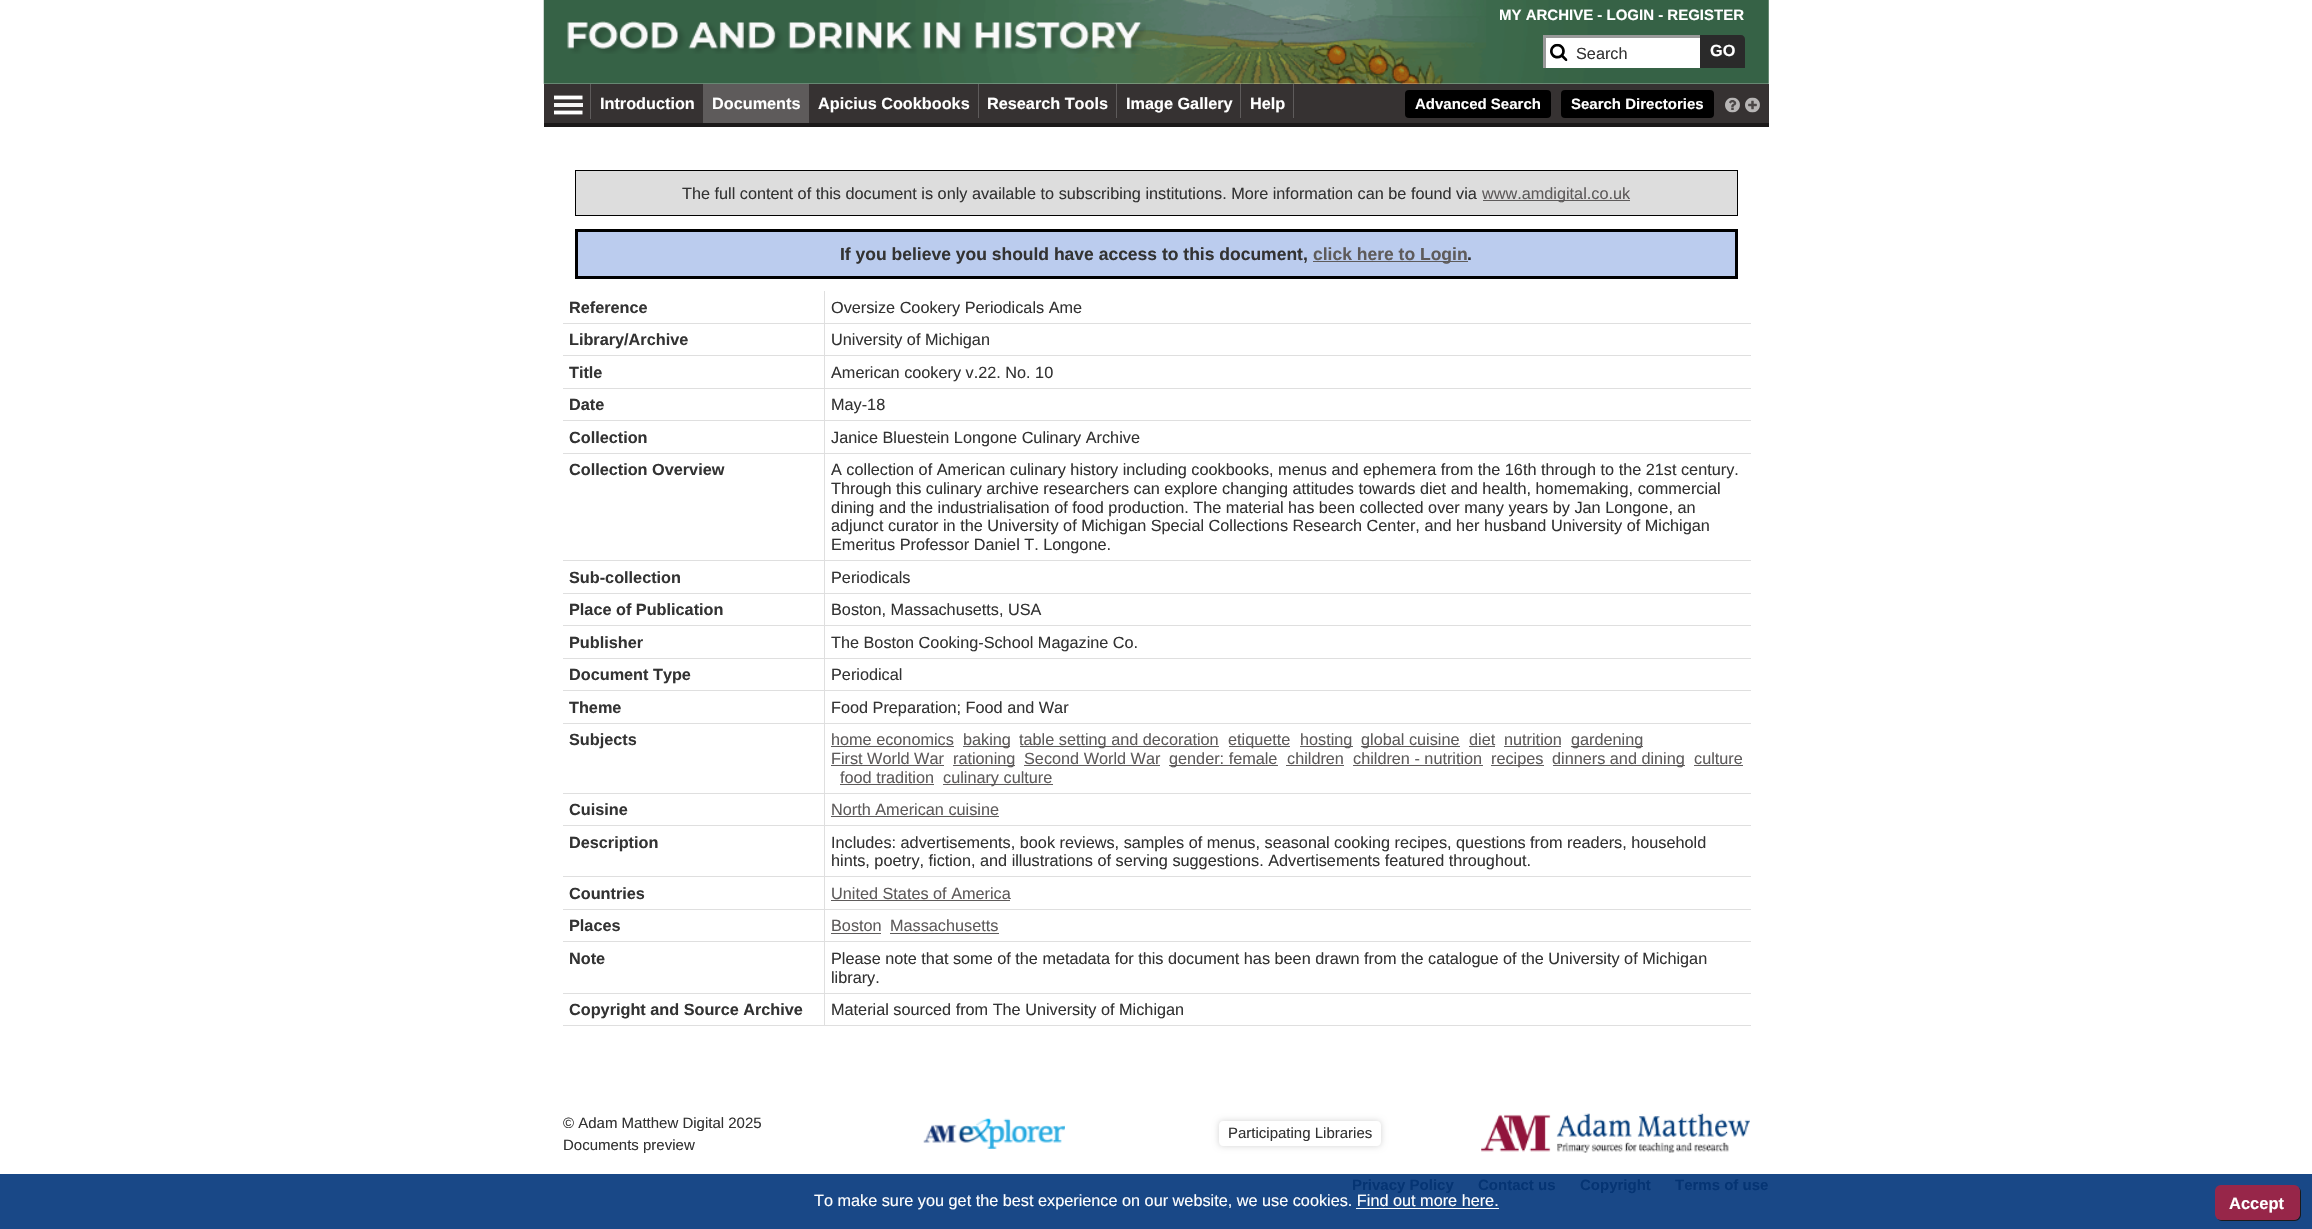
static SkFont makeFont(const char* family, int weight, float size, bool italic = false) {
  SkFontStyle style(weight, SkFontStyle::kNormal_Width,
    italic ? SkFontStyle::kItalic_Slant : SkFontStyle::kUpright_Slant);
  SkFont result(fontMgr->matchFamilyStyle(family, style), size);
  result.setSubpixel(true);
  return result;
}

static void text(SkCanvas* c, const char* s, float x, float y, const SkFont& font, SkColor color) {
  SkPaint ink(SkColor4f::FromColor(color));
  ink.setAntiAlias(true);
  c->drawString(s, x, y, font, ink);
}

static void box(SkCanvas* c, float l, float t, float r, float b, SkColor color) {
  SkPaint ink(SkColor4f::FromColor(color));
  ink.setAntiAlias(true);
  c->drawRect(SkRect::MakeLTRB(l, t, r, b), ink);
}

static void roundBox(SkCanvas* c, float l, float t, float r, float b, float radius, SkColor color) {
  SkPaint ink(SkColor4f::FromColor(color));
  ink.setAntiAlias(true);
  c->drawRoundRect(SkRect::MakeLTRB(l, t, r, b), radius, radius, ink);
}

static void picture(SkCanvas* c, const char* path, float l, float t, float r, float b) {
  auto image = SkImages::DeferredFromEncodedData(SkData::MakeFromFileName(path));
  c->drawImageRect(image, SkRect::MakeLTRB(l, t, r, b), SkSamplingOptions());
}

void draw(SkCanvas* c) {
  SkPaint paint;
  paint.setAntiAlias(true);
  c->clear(0xffffffff);
  box(c, 0, 1174, 2312, 1229, 0xff194887);
  picture(c, "img_01.png", 543, 0, 1769, 84);
  SkFont face1 = makeFont("Liberation Sans", 700, 15);
  text(c, "MY ARCHIVE - LOGIN - REGISTER", 1499, 20, face1, 0xffffffff);
  picture(c, "img_02.png", 567, 21, 1146, 54);
  box(c, 1546, 38, 1700, 68, 0xffffffff);
  picture(c, "img_03.png", 1550, 43, 1568, 62);
  box(c, 1543, 35, 1700, 38, 0xff999999);
  box(c, 1543, 35, 1546, 68, 0xff999999);
  SkFont face2 = makeFont("Liberation Sans", 400, 16.25f);
  text(c, "Search", 1576, 59, face2, 0xff333333);
  paint.setColor(0xff2a2a2a);
  c->drawPath(SkPathBuilder().moveTo(1700, 35).lineTo(1741, 35).cubicTo(1743, 35, 1745, 37, 1745, 39).lineTo(1745, 68).lineTo(1700, 68).close().detach(), paint);
  SkFont face3 = makeFont("Liberation Sans", 700, 16.25f);
  text(c, "GO", 1710, 56, face3, 0xffffffff);
  box(c, 544, 84, 1769, 123, 0xff363232);
  box(c, 544, 123, 1769, 127, 0xff1b1919);
  paint.setStyle(SkPaint::kStroke_Style);
  paint.setStrokeWidth(3.8f);
  paint.setColor(0xffffffff);
  c->drawPath(SkPathBuilder().moveTo(554, 97.5f).lineTo(582.5f, 97.5f).detach(), paint);
  box(c, 590, 84, 591, 119, 0xff5e5b5b);
  box(c, 554, 103, 583, 107, 0xfff5f5f5);
  c->drawPath(SkPathBuilder().moveTo(554, 112.5f).lineTo(582.5f, 112.5f).detach(), paint);
  text(c, "Introduction", 600, 109, face3, 0xffffffff);
  box(c, 703, 84, 809, 123, 0xff5e5b5b);
  text(c, "Documents", 712, 109, face3, 0xffffffff);
  text(c, "Apicius Cookbooks", 818, 109, face3, 0xffffffff);
  box(c, 978, 84, 979, 118, 0xff5e5b5b);
  text(c, "Research Tools", 987, 109, face3, 0xffffffff);
  box(c, 1116, 84, 1117, 118, 0xff5e5b5b);
  text(c, "Image Gallery", 1126, 109, face3, 0xffffffff);
  box(c, 1240, 84, 1241, 118, 0xff5e5b5b);
  text(c, "Help", 1250, 109, face3, 0xffffffff);
  box(c, 1293, 84, 1294, 118, 0xff5e5b5b);
  roundBox(c, 1405, 90, 1551, 118, 4, 0xff000000);
  text(c, "Advanced Search", 1415, 109, face1, 0xffffffff);
  roundBox(c, 1561, 90, 1714, 118, 4, 0xff000000);
  text(c, "Search Directories", 1571, 109, face1, 0xffffffff);
  picture(c, "img_04.png", 1725, 97, 1740, 113);
  picture(c, "img_05.png", 1745, 97, 1760, 113);
  paint.setStyle(SkPaint::kFill_Style);
  paint.setColor(0xffdddddd);
  c->drawRect(SkRect::MakeLTRB(575.5f, 170.5f, 1737.5f, 215.5f), paint);
  paint.setStyle(SkPaint::kStroke_Style);
  paint.setStrokeWidth(1);
  paint.setColor(0xff000000);
  c->drawRect(SkRect::MakeLTRB(575.5f, 170.5f, 1737.5f, 215.5f), paint);
  text(c, "The full content of this document is only available to subscribing institutions. More information can be found via", 682, 199, face2, 0xff333333);
  box(c, 1483, 200, 1630, 201, 0xff5e5b5b);
  text(c, "www.amdigital.co.uk", 1482, 199, face2, 0xff5e5b5b);
  paint.setStyle(SkPaint::kFill_Style);
  paint.setColor(0xffbbccee);
  c->drawRect(SkRect::MakeLTRB(576.5f, 230.5f, 1736.5f, 277.5f), paint);
  paint.setStyle(SkPaint::kStroke_Style);
  paint.setStrokeWidth(3);
  paint.setColor(0xff000000);
  c->drawRect(SkRect::MakeLTRB(576.5f, 230.5f, 1736.5f, 277.5f), paint);
  SkFont face4 = makeFont("Liberation Sans", 700, 17.5f);
  text(c, "If you believe you should have access to this document,", 840, 260, face4, 0xff333333);
  box(c, 1313, 261, 1468, 262, 0xff5e5b5b);
  text(c, "click here to Login", 1313, 260, face4, 0xff5e5b5b);
  text(c, ".", 1467, 260, face4, 0xff333333);
  box(c, 824, 1025, 1751, 1026, 0xffdfdfdf);
  box(c, 824, 993, 825, 1026, 0xffdfdfdf);
  box(c, 824, 993, 1751, 994, 0xffdfdfdf);
  box(c, 824, 941, 825, 994, 0xffdfdfdf);
  box(c, 824, 941, 1751, 942, 0xffdfdfdf);
  box(c, 824, 909, 825, 943, 0xffdfdfdf);
  box(c, 824, 909, 1751, 910, 0xffdfdfdf);
  box(c, 824, 876, 825, 910, 0xffdfdfdf);
  box(c, 824, 876, 1751, 877, 0xffdfdfdf);
  box(c, 824, 825, 825, 878, 0xffdfdfdf);
  box(c, 824, 825, 1751, 826, 0xffdfdfdf);
  box(c, 824, 793, 825, 826, 0xffdfdfdf);
  box(c, 824, 793, 1751, 794, 0xffdfdfdf);
  box(c, 824, 723, 825, 794, 0xffdfdfdf);
  box(c, 824, 723, 1751, 724, 0xffdfdfdf);
  box(c, 824, 690, 825, 724, 0xffdfdfdf);
  box(c, 824, 690, 1751, 691, 0xffdfdfdf);
  box(c, 824, 658, 825, 691, 0xffdfdfdf);
  box(c, 824, 658, 1751, 659, 0xffdfdfdf);
  box(c, 824, 625, 825, 659, 0xffdfdfdf);
  box(c, 824, 625, 1751, 626, 0xffdfdfdf);
  box(c, 824, 593, 825, 626, 0xffdfdfdf);
  box(c, 824, 593, 1751, 594, 0xffdfdfdf);
  box(c, 824, 560, 825, 594, 0xffdfdfdf);
  box(c, 824, 560, 1751, 561, 0xffdfdfdf);
  box(c, 824, 453, 825, 561, 0xffdfdfdf);
  box(c, 824, 453, 1751, 454, 0xffdfdfdf);
  box(c, 824, 420, 825, 454, 0xffdfdfdf);
  box(c, 824, 420, 1751, 421, 0xffdfdfdf);
  box(c, 824, 388, 825, 421, 0xffdfdfdf);
  box(c, 824, 388, 1751, 389, 0xffdfdfdf);
  box(c, 824, 355, 825, 389, 0xffdfdfdf);
  box(c, 824, 355, 1751, 356, 0xffdfdfdf);
  box(c, 824, 323, 825, 356, 0xffdfdfdf);
  box(c, 824, 323, 1751, 324, 0xffdfdfdf);
  box(c, 824, 291, 825, 324, 0xffdfdfdf);
  box(c, 563, 323, 825, 324, 0xffdfdfdf);
  text(c, "Reference", 569, 313, face3, 0xff333333);
  text(c, "Oversize Cookery Periodicals Ame", 831, 313, face2, 0xff333333);
  box(c, 563, 355, 825, 356, 0xffdfdfdf);
  text(c, "Library/Archive", 569, 345, face3, 0xff333333);
  text(c, "University of Michigan", 831, 345, face2, 0xff333333);
  box(c, 563, 388, 825, 389, 0xffdfdfdf);
  text(c, "Title", 569, 378, face3, 0xff333333);
  text(c, "American cookery v.22. No. 10", 831, 378, face2, 0xff333333);
  box(c, 563, 420, 825, 421, 0xffdfdfdf);
  text(c, "Date", 569, 410, face3, 0xff333333);
  text(c, "May-18", 831, 410, face2, 0xff333333);
  box(c, 563, 453, 825, 454, 0xffdfdfdf);
  text(c, "Collection", 569, 443, face3, 0xff333333);
  text(c, "Janice Bluestein Longone Culinary Archive", 831, 443, face2, 0xff333333);
  box(c, 563, 560, 825, 561, 0xffdfdfdf);
  text(c, "Collection Overview", 569, 475, face3, 0xff333333);
  text(c, "A collection of American culinary history including cookbooks, menus and ephemera from the 16th through to the 21st century.", 831, 475, face2, 0xff333333);
  text(c, "Through this culinary archive researchers can explore changing attitudes towards diet and health, homemaking, commercial", 831, 494, face2, 0xff333333);
  text(c, "dining and the industrialisation of food production. The material has been collected over many years by Jan Longone, an", 831, 513, face2, 0xff333333);
  text(c, "adjunct curator in the University of Michigan Special Collections Research Center, and her husband University of Michigan", 831, 531, face2, 0xff333333);
  text(c, "Emeritus Professor Daniel T. Longone.", 831, 550, face2, 0xff333333);
  box(c, 563, 593, 825, 594, 0xffdfdfdf);
  text(c, "Sub-collection", 569, 583, face3, 0xff333333);
  text(c, "Periodicals", 831, 583, face2, 0xff333333);
  box(c, 563, 625, 825, 626, 0xffdfdfdf);
  text(c, "Place of Publication", 569, 615, face3, 0xff333333);
  text(c, "Boston, Massachusetts, USA", 831, 615, face2, 0xff333333);
  box(c, 563, 658, 825, 659, 0xffdfdfdf);
  text(c, "Publisher", 569, 648, face3, 0xff333333);
  text(c, "The Boston Cooking-School Magazine Co.", 831, 648, face2, 0xff333333);
  box(c, 563, 690, 825, 691, 0xffdfdfdf);
  text(c, "Document Type", 569, 680, face3, 0xff333333);
  text(c, "Periodical", 831, 680, face2, 0xff333333);
  box(c, 563, 723, 825, 724, 0xffdfdfdf);
  text(c, "Theme", 569, 713, face3, 0xff333333);
  text(c, "Food Preparation; Food and War", 831, 713, face2, 0xff333333);
  box(c, 563, 793, 825, 794, 0xffdfdfdf);
  text(c, "Subjects", 569, 745, face3, 0xff333333);
  text(c, "home economics", 831, 745, face2, 0xff5e5b5b);
  box(c, 831, 746, 954, 747, 0xff5e5b5b);
  box(c, 963, 746, 1010, 747, 0xff5e5b5b);
  text(c, "baking", 963, 745, face2, 0xff5e5b5b);
  box(c, 1020, 746, 1219, 747, 0xff5e5b5b);
  text(c, "table setting and decoration", 1019, 745, face2, 0xff5e5b5b);
  box(c, 1229, 746, 1290, 747, 0xff5e5b5b);
  text(c, "etiquette", 1228, 745, face2, 0xff5e5b5b);
  box(c, 1300, 746, 1353, 747, 0xff5e5b5b);
  text(c, "hosting", 1300, 745, face2, 0xff5e5b5b);
  box(c, 1361, 746, 1460, 747, 0xff5e5b5b);
  text(c, "global cuisine", 1361, 745, face2, 0xff5e5b5b);
  text(c, "diet", 1469, 745, face2, 0xff5e5b5b);
  box(c, 1469, 746, 1495, 747, 0xff5e5b5b);
  text(c, "nutrition", 1504, 745, face2, 0xff5e5b5b);
  box(c, 1504, 746, 1561, 747, 0xff5e5b5b);
  box(c, 1571, 746, 1643, 747, 0xff5e5b5b);
  text(c, "gardening", 1571, 745, face2, 0xff5e5b5b);
  text(c, "First World War", 831, 764, face2, 0xff5e5b5b);
  box(c, 831, 765, 944, 766, 0xff5e5b5b);
  box(c, 953, 765, 1015, 766, 0xff5e5b5b);
  text(c, "rationing", 953, 764, face2, 0xff5e5b5b);
  text(c, "Second World War", 1024, 764, face2, 0xff5e5b5b);
  box(c, 1024, 765, 1160, 766, 0xff5e5b5b);
  box(c, 1169, 765, 1278, 766, 0xff5e5b5b);
  text(c, "gender: female", 1169, 764, face2, 0xff5e5b5b);
  text(c, "children", 1287, 764, face2, 0xff5e5b5b);
  box(c, 1286, 765, 1344, 766, 0xff5e5b5b);
  text(c, "children - nutrition", 1353, 764, face2, 0xff5e5b5b);
  box(c, 1353, 765, 1483, 766, 0xff5e5b5b);
  box(c, 1491, 765, 1544, 766, 0xff5e5b5b);
  text(c, "recipes", 1491, 764, face2, 0xff5e5b5b);
  box(c, 1553, 765, 1685, 766, 0xff5e5b5b);
  text(c, "dinners and dining", 1552, 764, face2, 0xff5e5b5b);
  text(c, "culture", 1694, 764, face2, 0xff5e5b5b);
  box(c, 1694, 765, 1743, 766, 0xff5e5b5b);
  text(c, "food tradition", 840, 783, face2, 0xff5e5b5b);
  box(c, 840, 784, 934, 785, 0xff5e5b5b);
  box(c, 943, 784, 1053, 785, 0xff5e5b5b);
  text(c, "culinary culture", 943, 783, face2, 0xff5e5b5b);
  box(c, 563, 825, 825, 826, 0xffdfdfdf);
  text(c, "Cuisine", 569, 815, face3, 0xff333333);
  text(c, "North American cuisine", 831, 815, face2, 0xff5e5b5b);
  box(c, 831, 816, 999, 817, 0xff5e5b5b);
  box(c, 563, 876, 825, 877, 0xffdfdfdf);
  text(c, "Description", 569, 848, face3, 0xff333333);
  text(c, "Includes: advertisements, book reviews, samples of menus, seasonal cooking recipes, questions from readers, household", 831, 848, face2, 0xff333333);
  text(c, "hints, poetry, fiction, and illustrations of serving suggestions. Advertisements featured throughout.", 831, 866, face2, 0xff333333);
  box(c, 563, 909, 825, 910, 0xffdfdfdf);
  text(c, "Countries", 569, 899, face3, 0xff333333);
  text(c, "United States of America", 831, 899, face2, 0xff5e5b5b);
  box(c, 831, 900, 1010, 901, 0xff5e5b5b);
  box(c, 563, 941, 825, 942, 0xffdfdfdf);
  text(c, "Places", 569, 931, face3, 0xff333333);
  text(c, "Boston", 831, 931, face2, 0xff5e5b5b);
  box(c, 831, 933, 881, 934, 0xff5e5b5b);
  text(c, "Massachusetts", 890, 931, face2, 0xff5e5b5b);
  box(c, 890, 933, 999, 934, 0xff5e5b5b);
  box(c, 563, 993, 825, 994, 0xffdfdfdf);
  text(c, "Note", 569, 964, face3, 0xff333333);
  text(c, "Please note that some of the metadata for this document has been drawn from the catalogue of the University of Michigan", 831, 964, face2, 0xff333333);
  text(c, "library.", 831, 983, face2, 0xff333333);
  box(c, 563, 1025, 825, 1026, 0xffdfdfdf);
  text(c, "Copyright and Source Archive", 569, 1015, face3, 0xff333333);
  text(c, "Material sourced from The University of Michigan", 831, 1015, face2, 0xff333333);
  SkFont face5 = makeFont("Liberation Sans", 400, 15);
  text(c, "© Adam Matthew Digital 2025", 563, 1128, face5, 0xff333333);
  text(c, "Documents preview", 563, 1150, face5, 0xff333333);
  picture(c, "img_06.png", 923, 1118, 1065, 1149);
  c->save();
  c->clipPath(SkPathBuilder(SkPathFillType::kEvenOdd).moveTo(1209, 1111).lineTo(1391, 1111).lineTo(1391, 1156).lineTo(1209, 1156).close().moveTo(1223, 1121).lineTo(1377, 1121).cubicTo(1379, 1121, 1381, 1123, 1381, 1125).lineTo(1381, 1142).cubicTo(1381, 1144, 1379, 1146, 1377, 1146).lineTo(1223, 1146).cubicTo(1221, 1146, 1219, 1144, 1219, 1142).lineTo(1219, 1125).cubicTo(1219, 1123, 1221, 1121, 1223, 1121).close().detach(), true);
  paint.setStyle(SkPaint::kFill_Style);
  paint.setColor(0xffd3d3d3);
  paint.setMaskFilter(SkMaskFilter::MakeBlur(kNormal_SkBlurStyle, 3));
  c->drawRoundRect(SkRect::MakeLTRB(1219, 1121, 1381, 1146), 4, 4, paint);
  paint.setMaskFilter(nullptr);
  c->restore();
  text(c, "Participating Libraries", 1228, 1138, face5, 0xff333333);
  picture(c, "img_07.png", 1481, 1113, 1750, 1153);
  text(c, "Privacy Policy", 1352, 1190, face1, 0xff053473);
  text(c, "Contact us", 1478, 1190, face1, 0xff053473);
  text(c, "Copyright", 1580, 1190, face1, 0xff053473);
  text(c, "Terms of use", 1675, 1190, face1, 0xff053473);
  text(c, "To make sure you get the best experience on our website, we use cookies. Find out more here.", 814, 1206, face2, 0xffffffff);
  box(c, 1356, 1208, 1499, 1209, 0xffffffff);
  paint.setColor(0xff1a1a1a);
  c->drawPath(SkPathBuilder().moveTo(2217, 1218).cubicTo(2218, 1220, 2220, 1221, 2222, 1221).lineTo(2295, 1221).cubicTo(2298, 1221, 2301, 1218, 2301, 1215).lineTo(2301, 1192).cubicTo(2301, 1190, 2300, 1188, 2298, 1187).cubicTo(2299, 1188, 2300, 1190, 2300, 1191).lineTo(2300, 1214).cubicTo(2300, 1217, 2297, 1220, 2294, 1220).lineTo(2221, 1220).cubicTo(2220, 1220, 2218, 1219, 2217, 1218).close().detach(), paint);
  roundBox(c, 2215, 1185, 2300, 1220, 6, 0xff972649);
  SkFont face6 = makeFont("Liberation Sans", 700, 16.5f);
  text(c, "Accept", 2229, 1209, face6, 0xffffffff);
}
